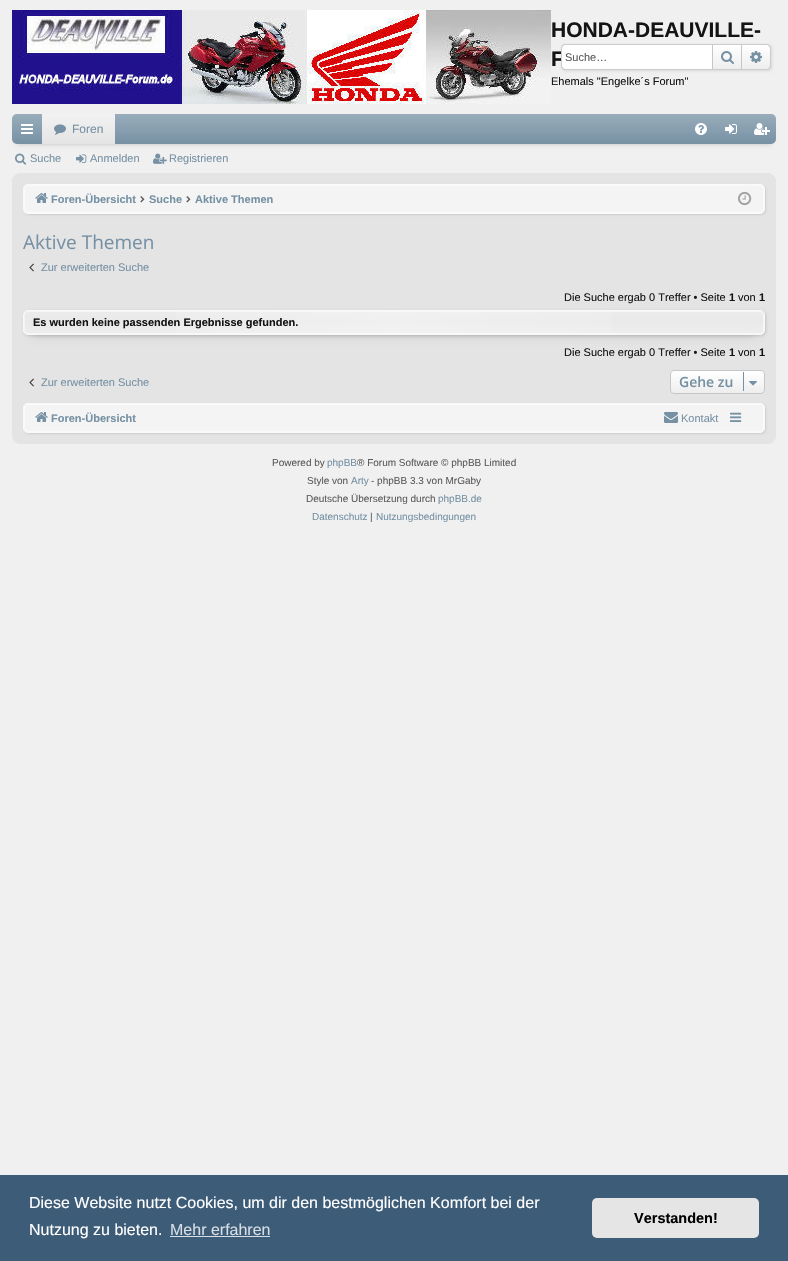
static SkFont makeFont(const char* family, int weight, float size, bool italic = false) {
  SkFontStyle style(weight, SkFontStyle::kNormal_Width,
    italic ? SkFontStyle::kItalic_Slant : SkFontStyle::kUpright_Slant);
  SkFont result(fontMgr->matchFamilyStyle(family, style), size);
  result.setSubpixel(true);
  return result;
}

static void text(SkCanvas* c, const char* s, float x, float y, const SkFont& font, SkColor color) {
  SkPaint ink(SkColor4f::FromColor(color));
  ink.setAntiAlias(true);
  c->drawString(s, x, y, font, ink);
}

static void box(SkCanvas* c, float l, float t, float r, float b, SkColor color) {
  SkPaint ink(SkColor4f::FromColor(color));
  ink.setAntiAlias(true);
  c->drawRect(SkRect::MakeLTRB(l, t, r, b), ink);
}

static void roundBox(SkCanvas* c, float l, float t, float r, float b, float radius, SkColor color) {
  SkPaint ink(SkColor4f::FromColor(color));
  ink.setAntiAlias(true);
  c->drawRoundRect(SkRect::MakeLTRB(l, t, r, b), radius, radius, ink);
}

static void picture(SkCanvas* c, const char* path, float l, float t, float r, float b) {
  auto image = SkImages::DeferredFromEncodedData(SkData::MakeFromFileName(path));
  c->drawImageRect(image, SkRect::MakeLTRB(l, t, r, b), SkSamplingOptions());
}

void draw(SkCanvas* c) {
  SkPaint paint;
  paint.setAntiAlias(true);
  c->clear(0xfff0f0f0);
  picture(c, "img_01.png", 12, 10, 551, 104);
  SkFont face1 = makeFont("Liberation Sans", 700, 21);
  text(c, "HONDA-DEAUVILLE-", 551, 37, face1, 0xff141414);
  text(c, "F", 551, 66, face1, 0xff141414);
  SkFont face2 = makeFont("Liberation Sans", 400, 11);
  text(c, "Ehemals \"Engelke´s Forum\"", 551, 85, face2, 0xff141414);
  paint.setColor(0x1a000000);
  paint.setMaskFilter(SkMaskFilter::MakeBlur(kNormal_SkBlurStyle, 1.5f));
  c->drawRoundRect(SkRect::MakeLTRB(562, 45, 772, 71), 4, 4, paint);
  paint.setMaskFilter(nullptr);
  paint.setStyle(SkPaint::kStroke_Style);
  paint.setStrokeWidth(1);
  paint.setColor(0xffcccccc);
  c->drawRoundRect(SkRect::MakeLTRB(561.5f, 44.5f, 770.5f, 69.5f), 3.5f, 3.5f, paint);
  paint.setStyle(SkPaint::kFill_Style);
  paint.setColor(0xffffffff);
  c->drawPath(SkPathBuilder().moveTo(566, 45).lineTo(712, 45).lineTo(712, 69).lineTo(566, 69).cubicTo(564, 69, 562, 67, 562, 65).lineTo(562, 49).cubicTo(562, 47, 564, 45, 566, 45).close().detach(), paint);
  text(c, "Suche…", 565, 61, face2, 0xff5b5b5b);
  {
    const SkColor colors[] = {0xffffffff, 0xffeeeeee};
    const float stops[] = {0, 1};
    const SkPoint ends[] = {{727, 45}, {727, 69}};
    paint.setShader(SkGradientShader::MakeLinear(ends, colors, stops, 2, SkTileMode::kClamp));
    paint.setAlpha(255);
  }
  c->drawRect(SkRect::MakeLTRB(713, 45, 741, 69), paint);
  box(c, 741, 45, 742, 69, 0xffc6c6c6);
  box(c, 712, 45, 713, 69, 0xffc6c6c6);
  picture(c, "img_02.png", 721, 51, 734, 64);
  {
    const SkColor colors[] = {0xffffffff, 0xffeeeeee};
    const float stops[] = {0, 1};
    const SkPoint ends[] = {{756, 45}, {756, 69}};
    paint.setShader(SkGradientShader::MakeLinear(ends, colors, stops, 2, SkTileMode::kClamp));
    paint.setAlpha(255);
  }
  c->drawPath(SkPathBuilder().moveTo(742, 45).lineTo(766, 45).cubicTo(768, 45, 770, 47, 770, 49).lineTo(770, 65).cubicTo(770, 67, 768, 69, 766, 69).lineTo(742, 69).close().detach(), paint);
  picture(c, "img_03.png", 750, 51, 762, 63);
  paint.setShader(nullptr);
  paint.setColor(0x33000000);
  paint.setMaskFilter(SkMaskFilter::MakeBlur(kNormal_SkBlurStyle, 2.5f));
  c->drawRect(SkRect::MakeLTRB(17, 124, 771, 144), paint);
  paint.setMaskFilter(nullptr);
  roundBox(c, 12, 114, 776, 144, 5, 0xff7691a4);
  {
    const SkColor colors[] = {0x40ffffff, 0x00ffffff};
    const float stops[] = {0, 1};
    const SkPoint ends[] = {{394, 114}, {394, 144}};
    paint.setShader(SkGradientShader::MakeLinear(ends, colors, stops, 2, SkTileMode::kClamp));
    paint.setAlpha(255);
  }
  c->drawRoundRect(SkRect::MakeLTRB(12, 114, 776, 144), 5, 5, paint);
  picture(c, "img_04.png", 21, 124, 33, 134);
  {
    const SkColor colors[] = {0xfff2f2f2, 0xffe4e4e4};
    const float stops[] = {0, 1};
    const SkPoint ends[] = {{79, 114}, {79, 144}};
    paint.setShader(SkGradientShader::MakeLinear(ends, colors, stops, 2, SkTileMode::kClamp));
    paint.setAlpha(255);
  }
  c->drawRect(SkRect::MakeLTRB(42, 114, 115, 144), paint);
  picture(c, "img_05.png", 54, 124, 66, 135);
  SkFont face3 = makeFont("Liberation Sans", 400, 12);
  text(c, "Foren", 72, 133, face3, 0xff7691a4);
  picture(c, "img_06.png", 695, 123, 707, 135);
  picture(c, "img_07.png", 725, 124, 737, 134);
  picture(c, "img_08.png", 754, 123, 770, 135);
  picture(c, "img_09.png", 15, 153, 27, 165);
  text(c, "Suche", 30, 162, face2, 0xff7691a4);
  picture(c, "img_10.png", 76, 154, 87, 163);
  text(c, "Anmelden", 90, 162, face2, 0xff7691a4);
  picture(c, "img_11.png", 153, 153, 167, 164);
  text(c, "Registrieren", 169, 162, face2, 0xff7691a4);
  paint.setShader(nullptr);
  paint.setColor(0xffe4e4e4);
  c->drawRoundRect(SkRect::MakeLTRB(12.5f, 173.5f, 775.5f, 443.5f), 7.5f, 7.5f, paint);
  paint.setStyle(SkPaint::kStroke_Style);
  c->drawRoundRect(SkRect::MakeLTRB(12.5f, 173.5f, 775.5f, 443.5f), 7.5f, 7.5f, paint);
  paint.setStyle(SkPaint::kFill_Style);
  paint.setColor(0x1a000000);
  paint.setMaskFilter(SkMaskFilter::MakeBlur(kNormal_SkBlurStyle, 1));
  c->drawRoundRect(SkRect::MakeLTRB(24, 185, 766, 215), 5, 5, paint);
  paint.setMaskFilter(nullptr);
  roundBox(c, 23, 184, 765, 214, 5, 0xfff4f4f4);
  paint.setStyle(SkPaint::kStroke_Style);
  paint.setColor(0xfffafafa);
  c->drawRoundRect(SkRect::MakeLTRB(24.5f, 185.5f, 763.5f, 212.5f), 3.5f, 3.5f, paint);
  paint.setColor(0xfff9f9f9);
  c->drawRoundRect(SkRect::MakeLTRB(23.5f, 184.5f, 764.5f, 213.5f), 4.5f, 4.5f, paint);
  picture(c, "img_12.png", 35, 193, 48, 203);
  SkFont face4 = makeFont("Liberation Sans", 700, 11);
  text(c, "Foren-Übersicht", 51, 203, face4, 0xff7691a4);
  picture(c, "img_13.png", 140, 196, 145, 203);
  text(c, "Suche", 149, 203, face4, 0xff7691a4);
  picture(c, "img_13.png", 186, 196, 191, 203);
  text(c, "Aktive Themen", 195, 203, face4, 0xff7691a4);
  picture(c, "img_14.png", 738, 191, 752, 206);
  SkFont face5 = makeFont("Open Sans", 400, 19);
  text(c, "Aktive Themen", 23, 249, face5, 0xff7691a4);
  picture(c, "img_15.png", 29, 263, 34, 272);
  text(c, "Zur erweiterten Suche", 41, 271, face2, 0xff7691a4);
  text(c, "Die Suche ergab 0 Treffer • Seite", 564, 301, face2, 0xff141414);
  text(c, "1", 729, 301, face4, 0xff141414);
  text(c, "von", 738, 301, face2, 0xff141414);
  text(c, "1", 759, 301, face4, 0xff141414);
  paint.setStyle(SkPaint::kFill_Style);
  paint.setColor(0x33000000);
  paint.setMaskFilter(SkMaskFilter::MakeBlur(kNormal_SkBlurStyle, 5));
  c->drawRect(SkRect::MakeLTRB(33, 330, 755, 335), paint);
  paint.setMaskFilter(nullptr);
  paint.setColor(0x26000000);
  paint.setMaskFilter(SkMaskFilter::MakeBlur(kNormal_SkBlurStyle, 1.5f));
  c->drawRoundRect(SkRect::MakeLTRB(24, 311, 766, 336), 5, 5, paint);
  paint.setMaskFilter(nullptr);
  roundBox(c, 23, 310, 765, 335, 5, 0xfff4f4f4);
  c->save();
  c->clipPath(SkPathBuilder().moveTo(28, 310).lineTo(760, 310).cubicTo(763, 310, 765, 312, 765, 315).lineTo(765, 330).cubicTo(765, 333, 763, 335, 760, 335).lineTo(28, 335).cubicTo(25, 335, 23, 333, 23, 330).lineTo(23, 315).cubicTo(23, 312, 25, 310, 28, 310).close().detach(), true);
  {
    const SkColor colors[] = {0x33cccccc, 0x40cccccc, 0x00cccccc};
    const float stops[] = {0, 0.2f, 1};
    const SkPoint ends[] = {{394, 311}, {394, 361}};
    paint.setShader(SkGradientShader::MakeLinear(ends, colors, stops, 3, SkTileMode::kClamp));
    paint.setAlpha(255);
  }
  c->drawRect(SkRect::MakeLTRB(23, 311, 765, 334), paint);
  c->restore();
  {
    const SkColor colors[] = {0x00ffffff, 0x4dffffff, 0x00ffffff};
    const float stops[] = {0, 0.5f, 1};
    const SkPoint ends[] = {{24, 323}, {764, 323}};
    paint.setShader(SkGradientShader::MakeLinear(ends, colors, stops, 3, SkTileMode::kClamp));
    paint.setAlpha(255);
  }
  c->drawRect(SkRect::MakeLTRB(176, 311, 612, 334), paint);
  paint.setStyle(SkPaint::kStroke_Style);
  paint.setShader(nullptr);
  paint.setColor(0x80ffffff);
  c->drawRoundRect(SkRect::MakeLTRB(24.5f, 311.5f, 763.5f, 333.5f), 3.5f, 3.5f, paint);
  paint.setColor(0xfff9f9f9);
  c->drawRoundRect(SkRect::MakeLTRB(23.5f, 310.5f, 764.5f, 334.5f), 4.5f, 4.5f, paint);
  text(c, "Es wurden keine passenden Ergebnisse gefunden.", 33, 326, face4, 0xff141414);
  text(c, "Die Suche ergab 0 Treffer • Seite", 564, 356, face2, 0xff141414);
  text(c, "1", 729, 356, face4, 0xff141414);
  text(c, "von", 738, 356, face2, 0xff141414);
  text(c, "1", 759, 356, face4, 0xff141414);
  picture(c, "img_15.png", 29, 378, 34, 387);
  text(c, "Zur erweiterten Suche", 41, 386, face2, 0xff7691a4);
  roundBox(c, 670, 370, 765, 394, 4, 0xffeeeeee);
  c->save();
  c->clipPath(SkPathBuilder().moveTo(674, 370).lineTo(761, 370).cubicTo(763, 370, 765, 372, 765, 374).lineTo(765, 390).cubicTo(765, 392, 763, 394, 761, 394).lineTo(674, 394).cubicTo(672, 394, 670, 392, 670, 390).lineTo(670, 374).cubicTo(670, 372, 672, 370, 674, 370).close().detach(), true);
  paint.setStyle(SkPaint::kFill_Style);
  {
    const SkColor colors[] = {0xffffffff, 0x00ffffff};
    const float stops[] = {0, 1};
    const SkPoint ends[] = {{718, 371}, {718, 393}};
    paint.setShader(SkGradientShader::MakeLinear(ends, colors, stops, 2, SkTileMode::kClamp));
    paint.setAlpha(255);
  }
  c->drawRect(SkRect::MakeLTRB(670, 371, 765, 393), paint);
  c->restore();
  paint.setStyle(SkPaint::kStroke_Style);
  paint.setShader(nullptr);
  paint.setColor(0xffc6c6c6);
  c->drawRoundRect(SkRect::MakeLTRB(670.5f, 370.5f, 764.5f, 393.5f), 3.5f, 3.5f, paint);
  SkFont face6 = makeFont("Open Sans", 600, 14);
  text(c, "Gehe zu", 679, 387, face6, 0xff7691a4);
  box(c, 743, 372, 744, 391, 0xff7691a4);
  picture(c, "img_16.png", 749, 381, 757, 386);
  paint.setStyle(SkPaint::kFill_Style);
  paint.setColor(0x1a000000);
  paint.setMaskFilter(SkMaskFilter::MakeBlur(kNormal_SkBlurStyle, 1));
  c->drawRoundRect(SkRect::MakeLTRB(24, 404, 766, 434), 5, 5, paint);
  paint.setMaskFilter(nullptr);
  roundBox(c, 23, 403, 765, 433, 5, 0xfff4f4f4);
  paint.setStyle(SkPaint::kStroke_Style);
  paint.setColor(0xfffafafa);
  c->drawRoundRect(SkRect::MakeLTRB(24.5f, 404.5f, 763.5f, 431.5f), 3.5f, 3.5f, paint);
  paint.setColor(0xfff9f9f9);
  c->drawRoundRect(SkRect::MakeLTRB(23.5f, 403.5f, 764.5f, 432.5f), 4.5f, 4.5f, paint);
  picture(c, "img_12.png", 35, 412, 48, 422);
  text(c, "Foren-Übersicht", 51, 422, face4, 0xff7691a4);
  picture(c, "img_17.png", 664, 412, 678, 423);
  text(c, "Kontakt", 681, 422, face2, 0xff7691a4);
  picture(c, "img_18.png", 730, 412, 742, 422);
  SkFont face7 = makeFont("Liberation Sans", 400, 10);
  text(c, "Powered by", 272, 466, face7, 0xff5b5b5b);
  text(c, "phpBB", 327, 466, face7, 0xff7691a4);
  text(c, "® Forum Software © phpBB Limited", 357, 466, face7, 0xff5b5b5b);
  text(c, "Style von", 307, 484, face7, 0xff5b5b5b);
  text(c, "Arty", 351, 484, face7, 0xff7691a4);
  text(c, "- phpBB 3.3 von MrGaby", 371, 484, face7, 0xff5b5b5b);
  text(c, "Deutsche Übersetzung durch", 306, 502, face7, 0xff5b5b5b);
  text(c, "phpBB.de", 438, 502, face7, 0xff7691a4);
  text(c, "Datenschutz", 312, 520, face7, 0xff7691a4);
  text(c, "|", 370, 520, face7, 0xff5b5b5b);
  text(c, "Nutzungsbedingungen", 376, 520, face7, 0xff7691a4);
  box(c, 0, 1175, 788, 1261, 0xff3d5c78);
  SkFont face8 = makeFont("Liberation Sans", 400, 16);
  text(c, "Diese Website nutzt Cookies, um dir den bestmöglichen Komfort bei der", 29, 1208, face8, 0xffffffff);
  text(c, "Nutzung zu bieten.", 29, 1235, face8, 0xffffffff);
  text(c, "Mehr erfahren", 170, 1235, face8, 0xffd8dee4);
  box(c, 170, 1236, 270, 1237, 0xffd8dee4);
  roundBox(c, 592, 1198, 759, 1238, 5, 0xffe5e5e5);
  SkFont face9 = makeFont("Liberation Sans", 700, 14.5f);
  text(c, "Verstanden!", 634, 1223, face9, 0xff000000);
}
